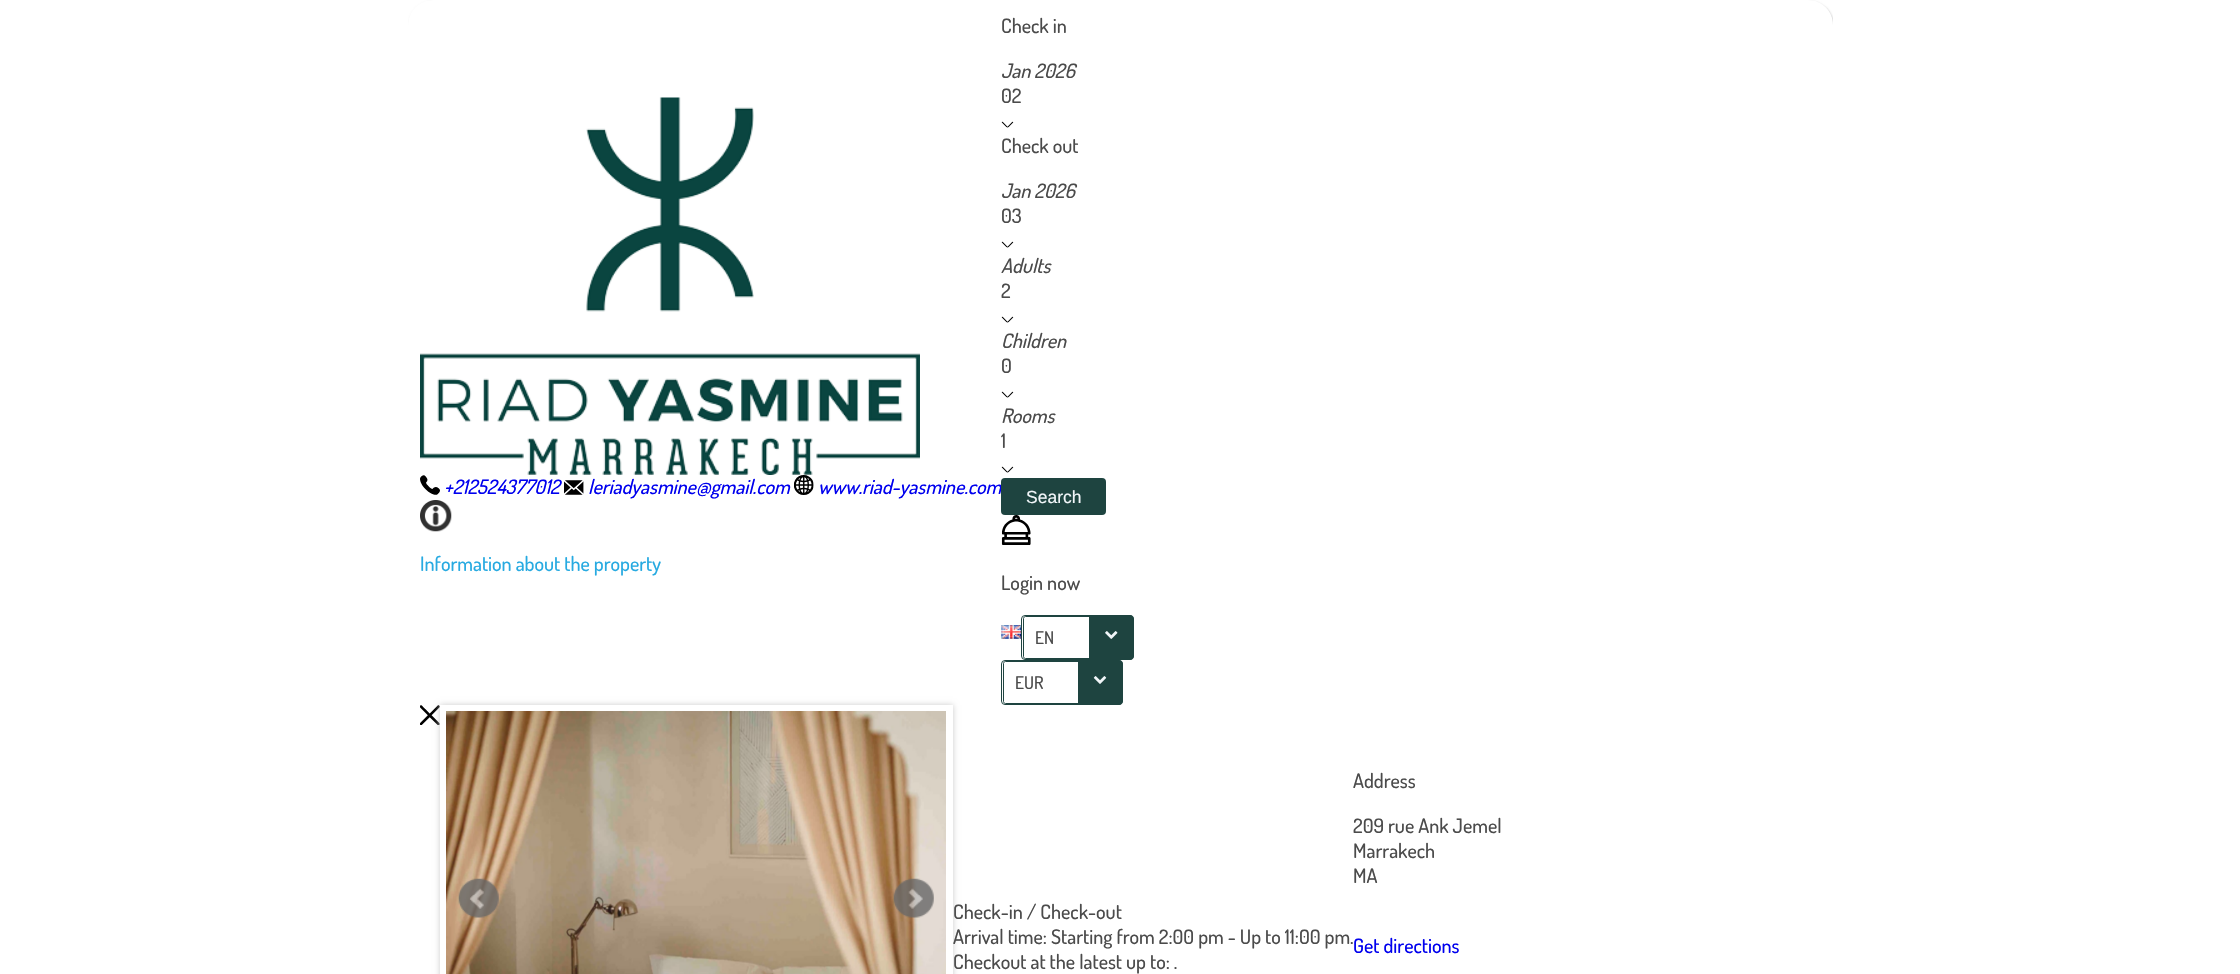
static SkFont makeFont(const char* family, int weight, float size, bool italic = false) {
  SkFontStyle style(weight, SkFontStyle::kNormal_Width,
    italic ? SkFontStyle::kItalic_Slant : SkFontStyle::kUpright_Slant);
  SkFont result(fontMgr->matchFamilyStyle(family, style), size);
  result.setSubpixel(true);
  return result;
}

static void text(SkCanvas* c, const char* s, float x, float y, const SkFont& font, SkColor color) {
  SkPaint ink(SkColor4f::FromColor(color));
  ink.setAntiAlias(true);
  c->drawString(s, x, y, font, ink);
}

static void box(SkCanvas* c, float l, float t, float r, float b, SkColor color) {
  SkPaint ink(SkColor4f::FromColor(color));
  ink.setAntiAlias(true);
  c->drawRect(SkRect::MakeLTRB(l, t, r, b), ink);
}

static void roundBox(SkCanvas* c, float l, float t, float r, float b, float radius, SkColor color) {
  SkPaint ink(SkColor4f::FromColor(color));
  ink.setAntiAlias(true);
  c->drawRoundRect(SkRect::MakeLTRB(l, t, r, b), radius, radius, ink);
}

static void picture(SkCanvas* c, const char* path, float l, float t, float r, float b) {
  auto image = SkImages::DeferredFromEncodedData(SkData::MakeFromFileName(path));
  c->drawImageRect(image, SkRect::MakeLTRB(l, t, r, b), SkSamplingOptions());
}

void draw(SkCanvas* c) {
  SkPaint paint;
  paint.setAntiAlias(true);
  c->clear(0xffffffff);
  c->save();
  c->clipRect(SkRect::MakeLTRB(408, 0, 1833, 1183));
  paint.setColor(0xffcccccc);
  paint.setMaskFilter(SkMaskFilter::MakeBlur(kNormal_SkBlurStyle, 1));
  c->drawRoundRect(SkRect::MakeLTRB(409, 1, 1834, 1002), 25, 25, paint);
  paint.setMaskFilter(nullptr);
  c->restore();
  paint.setColor(0xffffffff);
  c->drawPath(SkPathBuilder().moveTo(433, 0).lineTo(1808, 0).cubicTo(1822, 0, 1833, 11, 1833, 25).lineTo(1833, 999).lineTo(408, 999).lineTo(408, 25).cubicTo(408, 11, 419, 0, 433, 0).close().detach(), paint);
  picture(c, "img_01.png", 420, 97, 920, 475);
  picture(c, "img_02.png", 420, 475, 440, 495);
  SkFont face1 = makeFont("Dosis", 500, 20, true);
  text(c, "+212524377012", 444, 494, face1, 0xff0000ee);
  picture(c, "img_03.png", 564, 480, 584, 495);
  text(c, "leriadyasmine@gmail.com", 588, 494, face1, 0xff0000ee);
  picture(c, "img_04.png", 794, 475, 814, 495);
  text(c, "www.riad-yasmine.com", 818, 494, face1, 0xff0000ee);
  picture(c, "img_05.png", 420, 500, 452, 532);
  SkFont face2 = makeFont("Dosis", 500, 20);
  text(c, "Information about the property", 420, 571, face2, 0xff27aae1);
  text(c, "Check in", 1001, 33, face2, 0xff4b4b4b);
  text(c, "Jan 2026", 1001, 78, face1, 0xff4b4b4b);
  text(c, "02", 1001, 103, face2, 0xff4b4b4b);
  picture(c, "img_06.png", 1001, 121, 1014, 128);
  text(c, "Check out", 1001, 153, face2, 0xff4b4b4b);
  text(c, "Jan 2026", 1001, 198, face1, 0xff4b4b4b);
  text(c, "03", 1001, 223, face2, 0xff4b4b4b);
  picture(c, "img_06.png", 1001, 241, 1014, 248);
  text(c, "Adults", 1001, 273, face1, 0xff4b4b4b);
  text(c, "2", 1001, 298, face2, 0xff4b4b4b);
  picture(c, "img_06.png", 1001, 316, 1014, 323);
  text(c, "Children", 1001, 348, face1, 0xff4b4b4b);
  text(c, "0", 1001, 373, face2, 0xff4b4b4b);
  picture(c, "img_06.png", 1001, 391, 1014, 398);
  text(c, "Rooms", 1001, 423, face1, 0xff4b4b4b);
  text(c, "1", 1001, 448, face2, 0xff4b4b4b);
  picture(c, "img_06.png", 1001, 466, 1014, 473);
  roundBox(c, 1001, 478, 1106, 515, 4, 0xff1e4440);
  SkFont face3 = makeFont("Liberation Sans", 400, 17.5f);
  text(c, "Search", 1026, 503, face3, 0xfff1f6f9);
  picture(c, "img_07.png", 1001, 515, 1031, 545);
  text(c, "Login now", 1001, 590, face2, 0xff4b4b4b);
  picture(c, "img_08.png", 1001, 625, 1021, 639);
  paint.setStyle(SkPaint::kStroke_Style);
  paint.setStrokeWidth(1);
  paint.setColor(0xff1e4440);
  c->drawRoundRect(SkRect::MakeLTRB(1021.5f, 615.5f, 1133.5f, 659.5f), 3.5f, 3.5f, paint);
  paint.setStyle(SkPaint::kFill_Style);
  paint.setColor(0xffffffff);
  c->drawPath(SkPathBuilder().moveTo(1025.5f, 616.5f).lineTo(1090.5f, 616.5f).lineTo(1090.5f, 658.5f).lineTo(1025.5f, 658.5f).cubicTo(1024.5f, 658.5f, 1023.5f, 657.5f, 1023.5f, 656.5f).lineTo(1023.5f, 618.5f).cubicTo(1023.5f, 617.5f, 1024.5f, 616.5f, 1025.5f, 616.5f).close().detach(), paint);
  paint.setStyle(SkPaint::kStroke_Style);
  paint.setColor(0xff1e4440);
  c->drawPath(SkPathBuilder().moveTo(1025.5f, 616.5f).lineTo(1090.5f, 616.5f).lineTo(1090.5f, 658.5f).lineTo(1025.5f, 658.5f).cubicTo(1024.5f, 658.5f, 1023.5f, 657.5f, 1023.5f, 656.5f).lineTo(1023.5f, 618.5f).cubicTo(1023.5f, 617.5f, 1024.5f, 616.5f, 1025.5f, 616.5f).close().detach(), paint);
  SkFont face4 = makeFont("Dosis", 500, 17.5f);
  text(c, "EN", 1035, 644, face4, 0xff4b4b4b);
  paint.setStyle(SkPaint::kFill_Style);
  c->drawPath(SkPathBuilder().moveTo(1089, 615).lineTo(1130, 615).cubicTo(1132, 615, 1134, 617, 1134, 619).lineTo(1134, 656).cubicTo(1134, 658, 1132, 660, 1130, 660).lineTo(1089, 660).close().detach(), paint);
  picture(c, "img_09.png", 1105, 631, 1118, 639);
  paint.setStyle(SkPaint::kStroke_Style);
  c->drawRoundRect(SkRect::MakeLTRB(1001.5f, 660.5f, 1122.5f, 704.5f), 3.5f, 3.5f, paint);
  paint.setStyle(SkPaint::kFill_Style);
  paint.setColor(0xffffffff);
  c->drawPath(SkPathBuilder().moveTo(1005.5f, 661.5f).lineTo(1079.5f, 661.5f).lineTo(1079.5f, 703.5f).lineTo(1005.5f, 703.5f).cubicTo(1004.5f, 703.5f, 1003.5f, 702.5f, 1003.5f, 701.5f).lineTo(1003.5f, 663.5f).cubicTo(1003.5f, 662.5f, 1004.5f, 661.5f, 1005.5f, 661.5f).close().detach(), paint);
  paint.setStyle(SkPaint::kStroke_Style);
  paint.setColor(0xff1e4440);
  c->drawPath(SkPathBuilder().moveTo(1005.5f, 661.5f).lineTo(1079.5f, 661.5f).lineTo(1079.5f, 703.5f).lineTo(1005.5f, 703.5f).cubicTo(1004.5f, 703.5f, 1003.5f, 702.5f, 1003.5f, 701.5f).lineTo(1003.5f, 663.5f).cubicTo(1003.5f, 662.5f, 1004.5f, 661.5f, 1005.5f, 661.5f).close().detach(), paint);
  text(c, "EUR", 1015, 689, face4, 0xff4b4b4b);
  paint.setStyle(SkPaint::kFill_Style);
  c->drawPath(SkPathBuilder().moveTo(1078, 660).lineTo(1119, 660).cubicTo(1121, 660, 1123, 662, 1123, 664).lineTo(1123, 701).cubicTo(1123, 703, 1121, 705, 1119, 705).lineTo(1078, 705).close().detach(), paint);
  picture(c, "img_10.png", 1093, 676, 1107, 684);
  picture(c, "img_14.png", 420, 705, 440, 725);
  paint.setColor(0xffcccccc);
  paint.setMaskFilter(SkMaskFilter::MakeBlur(kNormal_SkBlurStyle, 3));
  c->drawRect(SkRect::MakeLTRB(440, 705, 953, 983), paint);
  paint.setMaskFilter(nullptr);
  text(c, "Arrival time: Starting from 2:00 pm - Up to 11:00 pm.", 953, 944, face2, 0xff4b4b4b);
  box(c, 440, 705, 953, 974, 0xffffffff);
  picture(c, "img_11.png", 446, 711, 946, 974);
  picture(c, "img_12.png", 458, 878, 499, 918);
  picture(c, "img_13.png", 893, 878, 934, 918);
  text(c, "Check-in / Check-out", 953, 919, face2, 0xff4b4b4b);
  text(c, "Checkout at the latest up to: .", 953, 969, face2, 0xff4b4b4b);
  text(c, "Address", 1353, 788, face2, 0xff4b4b4b);
  text(c, "209 rue Ank Jemel", 1353, 833, face2, 0xff4b4b4b);
  text(c, "Marrakech", 1353, 858, face2, 0xff4b4b4b);
  text(c, "MA", 1353, 883, face2, 0xff4b4b4b);
  text(c, "Get directions", 1353, 953, face2, 0xff0000ee);
}
